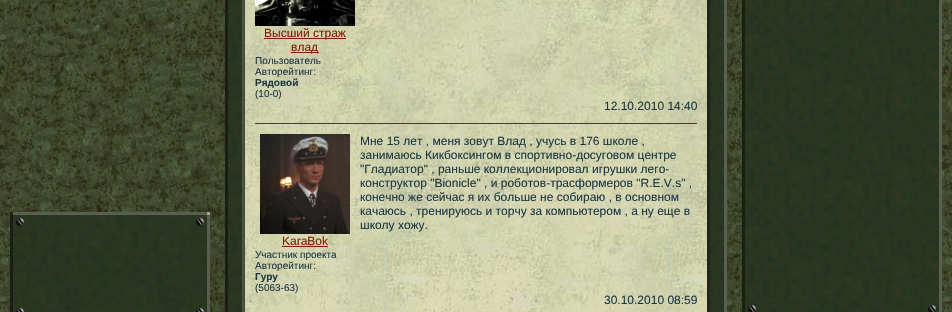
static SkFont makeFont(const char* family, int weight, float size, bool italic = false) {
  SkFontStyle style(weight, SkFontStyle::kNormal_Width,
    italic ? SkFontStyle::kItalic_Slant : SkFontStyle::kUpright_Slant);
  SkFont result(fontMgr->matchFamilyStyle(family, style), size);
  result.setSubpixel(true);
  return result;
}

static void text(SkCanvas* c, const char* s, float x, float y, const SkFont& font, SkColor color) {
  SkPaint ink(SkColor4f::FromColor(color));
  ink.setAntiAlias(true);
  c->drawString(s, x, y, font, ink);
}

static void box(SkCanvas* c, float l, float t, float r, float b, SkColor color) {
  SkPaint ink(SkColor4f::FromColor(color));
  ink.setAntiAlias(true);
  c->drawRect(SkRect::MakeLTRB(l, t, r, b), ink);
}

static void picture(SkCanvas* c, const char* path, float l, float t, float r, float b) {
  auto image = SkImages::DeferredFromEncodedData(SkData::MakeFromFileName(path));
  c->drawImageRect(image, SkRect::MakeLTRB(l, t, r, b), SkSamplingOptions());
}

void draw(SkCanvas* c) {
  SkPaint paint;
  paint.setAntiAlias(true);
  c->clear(0xffffffff);
  picture(c, "img_01.png", 0, 0, 952, 312);
  box(c, 10, 212, 13, 215, 0xff1e2516);
  box(c, 13, 212, 207, 215, 0xff596051);
  box(c, 207, 212, 210, 215, 0xffa3a29a);
  box(c, 10, 215, 13, 312, 0xff192013);
  picture(c, "img_02.png", 13, 215, 207, 312);
  picture(c, "img_03.png", 16, 218, 24, 226);
  picture(c, "img_04.png", 196, 218, 204, 226);
  picture(c, "img_05.png", 27, 229, 193, 305);
  picture(c, "img_06.png", 16, 308, 24, 312);
  picture(c, "img_07.png", 196, 308, 204, 312);
  box(c, 207, 215, 210, 312, 0xff585f51);
  box(c, 225, 0, 228, 312, 0xff192013);
  picture(c, "img_08.png", 228, 0, 724, 312);
  picture(c, "img_09.png", 242, 0, 245, 312);
  picture(c, "img_10.png", 245, 0, 707, 312);
  picture(c, "img_11.png", 255, 0, 355, 26);
  box(c, 264, 38, 346, 39, 0xff7b2105);
  SkFont face1 = makeFont("Liberation Sans", 400, 12);
  text(c, "Высший страж", 264, 37, face1, 0xff7b2105);
  box(c, 291, 52, 319, 53, 0xff7b2105);
  text(c, "влад", 291, 51, face1, 0xff7b2105);
  SkFont face2 = makeFont("Liberation Sans", 400, 10);
  text(c, "Пользователь", 255, 64, face2, 0xff1c3844);
  text(c, "Авторейтинг:", 255, 75, face2, 0xff1c3844);
  SkFont face3 = makeFont("Liberation Sans", 700, 10);
  text(c, "Рядовой", 255, 86, face3, 0xff1c3844);
  text(c, "(10-0)", 255, 97, face2, 0xff1c3844);
  text(c, "12.10.2010 14:40", 604, 110, face1, 0xff1c3844);
  box(c, 255, 123, 697, 124, 0xff493b2e);
  text(c, "Мне 15 лет , меня зовут Влад , учусь в 176 школе ,", 360, 145, face1, 0xff1c3844);
  text(c, "занимаюсь Кикбоксингом в спортивно-досуговом центре", 360, 159, face1, 0xff1c3844);
  text(c, "\"Гладиатор\" , раньше коллекционировал игрушки лего-", 360, 173, face1, 0xff1c3844);
  text(c, "конструктор \"Bionicle\" , и роботов-трасформеров \"R.E.V.s\" ,", 360, 187, face1, 0xff1c3844);
  text(c, "конечно же сейчас я их больше не собираю , в основном", 360, 201, face1, 0xff1c3844);
  text(c, "качаюсь , тренируюсь и торчу за компьютером , а ну еще в", 360, 215, face1, 0xff1c3844);
  text(c, "школу хожу.", 360, 229, face1, 0xff1c3844);
  picture(c, "img_12.png", 260, 134, 350, 234);
  text(c, "KaraBok", 282, 245, face1, 0xff7b2105);
  box(c, 282, 246, 328, 247, 0xff7b2105);
  text(c, "Участник проекта", 255, 258, face2, 0xff1c3844);
  text(c, "Авторейтинг:", 255, 269, face2, 0xff1c3844);
  text(c, "Гуру", 255, 280, face3, 0xff1c3844);
  text(c, "(5063-63)", 255, 291, face2, 0xff1c3844);
  text(c, "30.10.2010 08:59", 604, 304, face1, 0xff1c3844);
  box(c, 707, 0, 710, 312, 0xff1f2818);
  box(c, 724, 0, 727, 312, 0xff595f51);
  box(c, 742, 0, 745, 312, 0xff192013);
  picture(c, "img_13.png", 745, 0, 939, 312);
  picture(c, "img_14.png", 759, 0, 925, 302);
  picture(c, "img_15.png", 748, 305, 756, 312);
  picture(c, "img_16.png", 928, 305, 936, 312);
  box(c, 939, 0, 942, 312, 0xff595f51);
}
